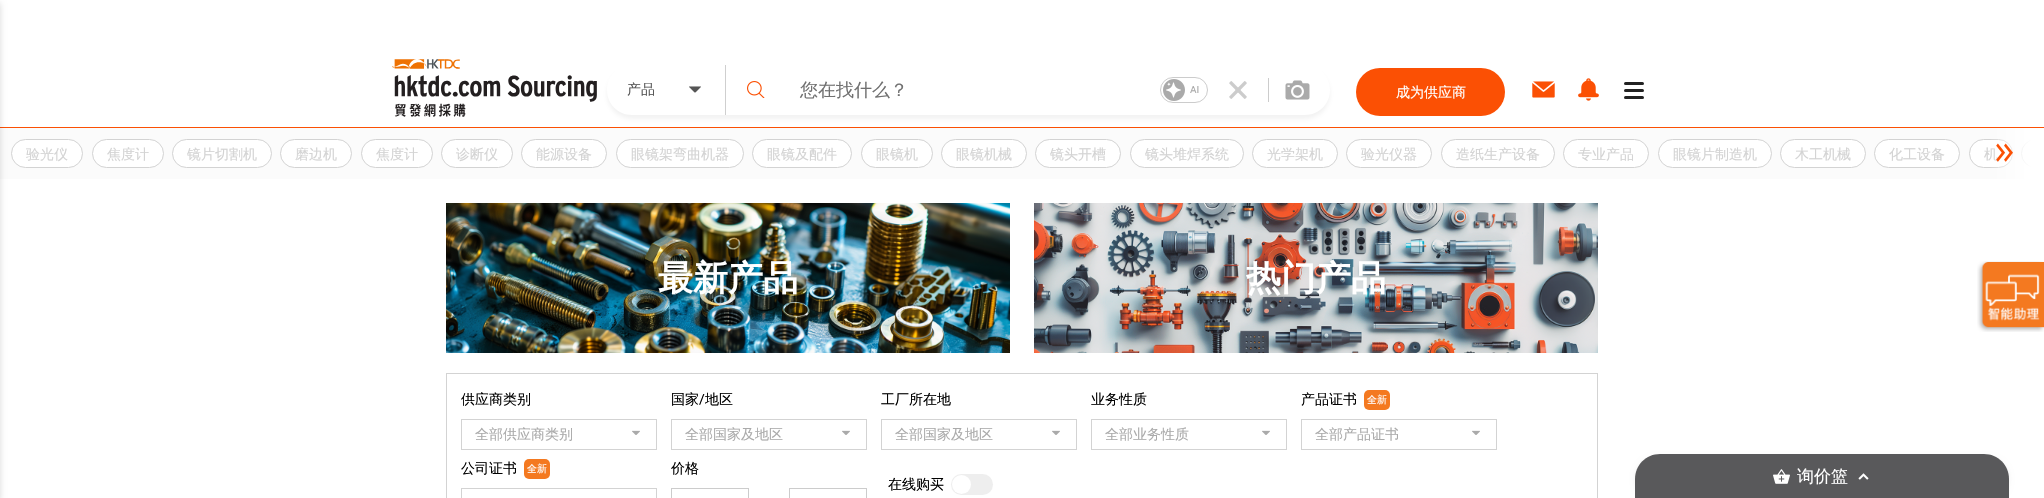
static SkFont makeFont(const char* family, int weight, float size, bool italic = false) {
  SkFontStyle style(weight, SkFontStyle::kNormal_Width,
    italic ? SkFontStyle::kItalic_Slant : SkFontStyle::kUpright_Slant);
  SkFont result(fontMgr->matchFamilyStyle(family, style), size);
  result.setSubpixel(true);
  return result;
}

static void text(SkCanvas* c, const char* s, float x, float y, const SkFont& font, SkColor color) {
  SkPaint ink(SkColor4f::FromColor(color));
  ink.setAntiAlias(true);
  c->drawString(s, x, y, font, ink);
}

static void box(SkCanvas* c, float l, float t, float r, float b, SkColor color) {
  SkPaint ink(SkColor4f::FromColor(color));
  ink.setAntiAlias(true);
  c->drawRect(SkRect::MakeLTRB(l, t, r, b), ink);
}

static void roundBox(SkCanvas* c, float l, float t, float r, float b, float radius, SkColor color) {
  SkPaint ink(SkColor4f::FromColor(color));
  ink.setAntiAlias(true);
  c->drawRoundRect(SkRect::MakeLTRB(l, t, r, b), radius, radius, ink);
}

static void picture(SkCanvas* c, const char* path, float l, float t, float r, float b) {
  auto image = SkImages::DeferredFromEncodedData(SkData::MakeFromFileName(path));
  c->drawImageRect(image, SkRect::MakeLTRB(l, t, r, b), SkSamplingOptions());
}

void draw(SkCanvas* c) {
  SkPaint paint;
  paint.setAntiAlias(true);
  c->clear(0xffffffff);
  box(c, 0, 127, 2044, 128, 0xfffb5004);
  picture(c, "img_01.png", 392, 59, 597, 117);
  c->save();
  c->clipPath(SkPathBuilder(SkPathFillType::kEvenOdd).moveTo(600, 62).lineTo(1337, 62).lineTo(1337, 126).lineTo(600, 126).close().moveTo(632, 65).lineTo(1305, 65).cubicTo(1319, 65, 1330, 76, 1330, 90).cubicTo(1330, 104, 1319, 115, 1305, 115).lineTo(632, 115).cubicTo(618, 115, 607, 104, 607, 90).cubicTo(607, 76, 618, 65, 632, 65).close().detach(), true);
  paint.setColor(0x1a7f7f7f);
  paint.setMaskFilter(SkMaskFilter::MakeBlur(kNormal_SkBlurStyle, 2));
  c->drawRoundRect(SkRect::MakeLTRB(607, 69, 1330, 119), 25, 25, paint);
  paint.setMaskFilter(nullptr);
  c->restore();
  box(c, 725, 65, 726, 115, 0xffcfcfcf);
  SkFont face1 = makeFont("WenQuanYi Zen Hei", 500, 14);
  text(c, "产品", 627, 94, face1, 0xff555555);
  picture(c, "img_02.png", 689, 86, 701, 93);
  picture(c, "img_03.png", 747, 81, 765, 98);
  SkFont face2 = makeFont("WenQuanYi Zen Hei", 500, 18);
  text(c, "您在找什么？", 800, 96, face2, 0xff707070);
  paint.setStyle(SkPaint::kStroke_Style);
  paint.setStrokeWidth(1);
  paint.setColor(0xffcccccc);
  c->drawRoundRect(SkRect::MakeLTRB(1160.5f, 77.5f, 1207.5f, 102.5f), 12.5f, 12.5f, paint);
  picture(c, "img_04.png", 1163, 79, 1185, 101);
  SkFont face3 = makeFont("Roboto", 400, 10);
  text(c, "AI", 1190, 93, face3, 0xffaaaaaa);
  picture(c, "img_05.png", 1229, 81, 1247, 99);
  box(c, 1268, 78, 1269, 102, 0xffcccccc);
  picture(c, "img_06.png", 1285, 80, 1310, 100);
  roundBox(c, 1356, 68, 1505, 116, 24, 0xfffb5004);
  text(c, "成为供应商", 1396, 97, face1, 0xffffffff);
  picture(c, "img_07.png", 1532, 81, 1555, 98);
  picture(c, "img_08.png", 1578, 78, 1599, 101);
  roundBox(c, 1624, 82, 1644, 85, 1.5f, 0xff222222);
  roundBox(c, 1624, 89, 1644, 92, 1.5f, 0xff222222);
  roundBox(c, 1624, 96, 1644, 99, 1.5f, 0xff222222);
  box(c, 0, 128, 2033, 179, 0xfffbfbfb);
  paint.setStyle(SkPaint::kFill_Style);
  paint.setColor(0xffffffff);
  c->drawRoundRect(SkRect::MakeLTRB(11.5f, 139.5f, 82.5f, 167.5f), 14, 14, paint);
  paint.setStyle(SkPaint::kStroke_Style);
  paint.setColor(0xffd3d3d3);
  c->drawRoundRect(SkRect::MakeLTRB(11.5f, 139.5f, 82.5f, 167.5f), 14, 14, paint);
  text(c, "验光仪", 26, 159, face1, 0xffd3d3d3);
  paint.setStyle(SkPaint::kFill_Style);
  paint.setColor(0xffffffff);
  c->drawRoundRect(SkRect::MakeLTRB(92.5f, 139.5f, 163.5f, 167.5f), 14, 14, paint);
  paint.setStyle(SkPaint::kStroke_Style);
  paint.setColor(0xffd3d3d3);
  c->drawRoundRect(SkRect::MakeLTRB(92.5f, 139.5f, 163.5f, 167.5f), 14, 14, paint);
  text(c, "焦度计", 107, 159, face1, 0xffd3d3d3);
  paint.setStyle(SkPaint::kFill_Style);
  paint.setColor(0xffffffff);
  c->drawRoundRect(SkRect::MakeLTRB(172.5f, 139.5f, 271.5f, 167.5f), 14, 14, paint);
  paint.setStyle(SkPaint::kStroke_Style);
  paint.setColor(0xffd3d3d3);
  c->drawRoundRect(SkRect::MakeLTRB(172.5f, 139.5f, 271.5f, 167.5f), 14, 14, paint);
  text(c, "镜片切割机", 187, 159, face1, 0xffd3d3d3);
  paint.setStyle(SkPaint::kFill_Style);
  paint.setColor(0xffffffff);
  c->drawRoundRect(SkRect::MakeLTRB(280.5f, 139.5f, 351.5f, 167.5f), 14, 14, paint);
  paint.setStyle(SkPaint::kStroke_Style);
  paint.setColor(0xffd3d3d3);
  c->drawRoundRect(SkRect::MakeLTRB(280.5f, 139.5f, 351.5f, 167.5f), 14, 14, paint);
  text(c, "磨边机", 295, 159, face1, 0xffd3d3d3);
  paint.setStyle(SkPaint::kFill_Style);
  paint.setColor(0xffffffff);
  c->drawRoundRect(SkRect::MakeLTRB(361.5f, 139.5f, 432.5f, 167.5f), 14, 14, paint);
  paint.setStyle(SkPaint::kStroke_Style);
  paint.setColor(0xffd3d3d3);
  c->drawRoundRect(SkRect::MakeLTRB(361.5f, 139.5f, 432.5f, 167.5f), 14, 14, paint);
  text(c, "焦度计", 376, 159, face1, 0xffd3d3d3);
  paint.setStyle(SkPaint::kFill_Style);
  paint.setColor(0xffffffff);
  c->drawRoundRect(SkRect::MakeLTRB(441.5f, 139.5f, 512.5f, 167.5f), 14, 14, paint);
  paint.setStyle(SkPaint::kStroke_Style);
  paint.setColor(0xffd3d3d3);
  c->drawRoundRect(SkRect::MakeLTRB(441.5f, 139.5f, 512.5f, 167.5f), 14, 14, paint);
  text(c, "诊断仪", 456, 159, face1, 0xffd3d3d3);
  paint.setStyle(SkPaint::kFill_Style);
  paint.setColor(0xffffffff);
  c->drawRoundRect(SkRect::MakeLTRB(521.5f, 139.5f, 606.5f, 167.5f), 14, 14, paint);
  paint.setStyle(SkPaint::kStroke_Style);
  paint.setColor(0xffd3d3d3);
  c->drawRoundRect(SkRect::MakeLTRB(521.5f, 139.5f, 606.5f, 167.5f), 14, 14, paint);
  text(c, "能源设备", 536, 159, face1, 0xffd3d3d3);
  paint.setStyle(SkPaint::kFill_Style);
  paint.setColor(0xffffffff);
  c->drawRoundRect(SkRect::MakeLTRB(616.5f, 139.5f, 743.5f, 167.5f), 14, 14, paint);
  paint.setStyle(SkPaint::kStroke_Style);
  paint.setColor(0xffd3d3d3);
  c->drawRoundRect(SkRect::MakeLTRB(616.5f, 139.5f, 743.5f, 167.5f), 14, 14, paint);
  text(c, "眼镜架弯曲机器", 631, 159, face1, 0xffd3d3d3);
  paint.setStyle(SkPaint::kFill_Style);
  paint.setColor(0xffffffff);
  c->drawRoundRect(SkRect::MakeLTRB(752.5f, 139.5f, 851.5f, 167.5f), 14, 14, paint);
  paint.setStyle(SkPaint::kStroke_Style);
  paint.setColor(0xffd3d3d3);
  c->drawRoundRect(SkRect::MakeLTRB(752.5f, 139.5f, 851.5f, 167.5f), 14, 14, paint);
  text(c, "眼镜及配件", 767, 159, face1, 0xffd3d3d3);
  paint.setStyle(SkPaint::kFill_Style);
  paint.setColor(0xffffffff);
  c->drawRoundRect(SkRect::MakeLTRB(861.5f, 139.5f, 932.5f, 167.5f), 14, 14, paint);
  paint.setStyle(SkPaint::kStroke_Style);
  paint.setColor(0xffd3d3d3);
  c->drawRoundRect(SkRect::MakeLTRB(861.5f, 139.5f, 932.5f, 167.5f), 14, 14, paint);
  text(c, "眼镜机", 876, 159, face1, 0xffd3d3d3);
  paint.setStyle(SkPaint::kFill_Style);
  paint.setColor(0xffffffff);
  c->drawRoundRect(SkRect::MakeLTRB(941.5f, 139.5f, 1026.5f, 167.5f), 14, 14, paint);
  paint.setStyle(SkPaint::kStroke_Style);
  paint.setColor(0xffd3d3d3);
  c->drawRoundRect(SkRect::MakeLTRB(941.5f, 139.5f, 1026.5f, 167.5f), 14, 14, paint);
  text(c, "眼镜机械", 956, 159, face1, 0xffd3d3d3);
  paint.setStyle(SkPaint::kFill_Style);
  paint.setColor(0xffffffff);
  c->drawRoundRect(SkRect::MakeLTRB(1035.5f, 139.5f, 1120.5f, 167.5f), 14, 14, paint);
  paint.setStyle(SkPaint::kStroke_Style);
  paint.setColor(0xffd3d3d3);
  c->drawRoundRect(SkRect::MakeLTRB(1035.5f, 139.5f, 1120.5f, 167.5f), 14, 14, paint);
  text(c, "镜头开槽", 1050, 159, face1, 0xffd3d3d3);
  paint.setStyle(SkPaint::kFill_Style);
  paint.setColor(0xffffffff);
  c->drawRoundRect(SkRect::MakeLTRB(1130.5f, 139.5f, 1243.5f, 167.5f), 14, 14, paint);
  paint.setStyle(SkPaint::kStroke_Style);
  paint.setColor(0xffd3d3d3);
  c->drawRoundRect(SkRect::MakeLTRB(1130.5f, 139.5f, 1243.5f, 167.5f), 14, 14, paint);
  text(c, "镜头堆焊系统", 1145, 159, face1, 0xffd3d3d3);
  paint.setStyle(SkPaint::kFill_Style);
  paint.setColor(0xffffffff);
  c->drawRoundRect(SkRect::MakeLTRB(1252.5f, 139.5f, 1337.5f, 167.5f), 14, 14, paint);
  paint.setStyle(SkPaint::kStroke_Style);
  paint.setColor(0xffd3d3d3);
  c->drawRoundRect(SkRect::MakeLTRB(1252.5f, 139.5f, 1337.5f, 167.5f), 14, 14, paint);
  text(c, "光学架机", 1267, 159, face1, 0xffd3d3d3);
  paint.setStyle(SkPaint::kFill_Style);
  paint.setColor(0xffffffff);
  c->drawRoundRect(SkRect::MakeLTRB(1346.5f, 139.5f, 1431.5f, 167.5f), 14, 14, paint);
  paint.setStyle(SkPaint::kStroke_Style);
  paint.setColor(0xffd3d3d3);
  c->drawRoundRect(SkRect::MakeLTRB(1346.5f, 139.5f, 1431.5f, 167.5f), 14, 14, paint);
  text(c, "验光仪器", 1361, 159, face1, 0xffd3d3d3);
  paint.setStyle(SkPaint::kFill_Style);
  paint.setColor(0xffffffff);
  c->drawRoundRect(SkRect::MakeLTRB(1441.5f, 139.5f, 1554.5f, 167.5f), 14, 14, paint);
  paint.setStyle(SkPaint::kStroke_Style);
  paint.setColor(0xffd3d3d3);
  c->drawRoundRect(SkRect::MakeLTRB(1441.5f, 139.5f, 1554.5f, 167.5f), 14, 14, paint);
  text(c, "造纸生产设备", 1456, 159, face1, 0xffd3d3d3);
  paint.setStyle(SkPaint::kFill_Style);
  paint.setColor(0xffffffff);
  c->drawRoundRect(SkRect::MakeLTRB(1563.5f, 139.5f, 1648.5f, 167.5f), 14, 14, paint);
  paint.setStyle(SkPaint::kStroke_Style);
  paint.setColor(0xffd3d3d3);
  c->drawRoundRect(SkRect::MakeLTRB(1563.5f, 139.5f, 1648.5f, 167.5f), 14, 14, paint);
  text(c, "专业产品", 1578, 159, face1, 0xffd3d3d3);
  paint.setStyle(SkPaint::kFill_Style);
  paint.setColor(0xffffffff);
  c->drawRoundRect(SkRect::MakeLTRB(1658.5f, 139.5f, 1771.5f, 167.5f), 14, 14, paint);
  paint.setStyle(SkPaint::kStroke_Style);
  paint.setColor(0xffd3d3d3);
  c->drawRoundRect(SkRect::MakeLTRB(1658.5f, 139.5f, 1771.5f, 167.5f), 14, 14, paint);
  text(c, "眼镜片制造机", 1673, 159, face1, 0xffd3d3d3);
  paint.setStyle(SkPaint::kFill_Style);
  paint.setColor(0xffffffff);
  c->drawRoundRect(SkRect::MakeLTRB(1780.5f, 139.5f, 1865.5f, 167.5f), 14, 14, paint);
  paint.setStyle(SkPaint::kStroke_Style);
  paint.setColor(0xffd3d3d3);
  c->drawRoundRect(SkRect::MakeLTRB(1780.5f, 139.5f, 1865.5f, 167.5f), 14, 14, paint);
  text(c, "木工机械", 1795, 159, face1, 0xffd3d3d3);
  paint.setStyle(SkPaint::kFill_Style);
  paint.setColor(0xffffffff);
  c->drawRoundRect(SkRect::MakeLTRB(1874.5f, 139.5f, 1959.5f, 167.5f), 14, 14, paint);
  paint.setStyle(SkPaint::kStroke_Style);
  paint.setColor(0xffd3d3d3);
  c->drawRoundRect(SkRect::MakeLTRB(1874.5f, 139.5f, 1959.5f, 167.5f), 14, 14, paint);
  text(c, "化工设备", 1889, 159, face1, 0xffd3d3d3);
  paint.setStyle(SkPaint::kFill_Style);
  paint.setColor(0xffffffff);
  c->drawRoundRect(SkRect::MakeLTRB(1969.5f, 139.5f, 2012.5f, 167.5f), 14, 14, paint);
  paint.setStyle(SkPaint::kStroke_Style);
  paint.setColor(0xffd3d3d3);
  c->drawRoundRect(SkRect::MakeLTRB(1969.5f, 139.5f, 2012.5f, 167.5f), 14, 14, paint);
  text(c, "机", 1984, 159, face1, 0xffd3d3d3);
  paint.setStyle(SkPaint::kFill_Style);
  paint.setColor(0xffffffff);
  c->drawPath(SkPathBuilder().moveTo(2035.5f, 139).lineTo(2037, 139).lineTo(2037, 168).lineTo(2035.5f, 168).cubicTo(2027.5f, 168, 2021, 161.5f, 2021, 153.5f).cubicTo(2021, 145.5f, 2027.5f, 139, 2035.5f, 139).close().detach(), paint);
  paint.setStyle(SkPaint::kStroke_Style);
  paint.setColor(0xffd3d3d3);
  c->drawRoundRect(SkRect::MakeLTRB(2021.5f, 139.5f, 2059.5f, 167.5f), 14, 14, paint);
  paint.setStyle(SkPaint::kFill_Style);
  {
    const SkColor colors[] = {0xffffffff, 0xffffffff, 0x00ffffff};
    const float stops[] = {0, 0.2f, 1};
    const SkPoint ends[] = {{2044, 154}, {1988, 154}};
    paint.setShader(SkGradientShader::MakeLinear(ends, colors, stops, 3, SkTileMode::kClamp));
    paint.setAlpha(255);
  }
  c->drawRect(SkRect::MakeLTRB(1991, 128, 2044, 179), paint);
  picture(c, "img_09.png", 1996, 143, 2013, 162);
  paint.setShader(nullptr);
  paint.setColor(0x26000000);
  paint.setMaskFilter(SkMaskFilter::MakeBlur(kNormal_SkBlurStyle, 3));
  c->drawRect(SkRect::MakeLTRB(-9, 3, 0, 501), paint);
  paint.setMaskFilter(nullptr);
  picture(c, "img_10.png", 446, 203, 1010, 353);
  SkFont face4 = makeFont("WenQuanYi Zen Hei", 700, 35);
  text(c, "最新产品", 658, 290, face4, 0xffffffff);
  picture(c, "img_11.png", 1034, 203, 1598, 353);
  text(c, "热门产品", 1246, 290, face4, 0xffffffff);
  paint.setStyle(SkPaint::kStroke_Style);
  paint.setColor(0xffd3d3d3);
  c->drawRect(SkRect::MakeLTRB(446.5f, 373.5f, 1597.5f, 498.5f), paint);
  text(c, "供应商类别", 461, 404, face1, 0xff000000);
  c->drawRect(SkRect::MakeLTRB(461.5f, 419.5f, 656.5f, 449.5f), paint);
  text(c, "全部供应商类别", 475, 439, face1, 0xffaaaaaa);
  picture(c, "img_12.png", 632, 430, 640, 435);
  text(c, "国家", 671, 404, face1, 0xff000000);
  SkFont face5 = makeFont("Roboto", 400, 14);
  text(c, "/", 699, 404, face5, 0xff000000);
  text(c, "地区", 705, 404, face1, 0xff000000);
  c->drawRect(SkRect::MakeLTRB(671.5f, 419.5f, 866.5f, 449.5f), paint);
  text(c, "全部国家及地区", 685, 439, face1, 0xffaaaaaa);
  picture(c, "img_12.png", 842, 430, 850, 435);
  text(c, "工厂所在地", 881, 404, face1, 0xff000000);
  c->drawRect(SkRect::MakeLTRB(881.5f, 419.5f, 1076.5f, 449.5f), paint);
  text(c, "全部国家及地区", 895, 439, face1, 0xffaaaaaa);
  picture(c, "img_12.png", 1052, 430, 1060, 435);
  text(c, "业务性质", 1091, 404, face1, 0xff000000);
  c->drawRect(SkRect::MakeLTRB(1091.5f, 419.5f, 1286.5f, 449.5f), paint);
  text(c, "全部业务性质", 1105, 439, face1, 0xffaaaaaa);
  picture(c, "img_12.png", 1262, 430, 1270, 435);
  text(c, "产品证书", 1301, 404, face1, 0xff000000);
  roundBox(c, 1364, 390, 1390, 410, 5, 0xfff47920);
  SkFont face6 = makeFont("WenQuanYi Zen Hei", 500, 10);
  text(c, "全新", 1367, 403, face6, 0xffffffff);
  c->drawRect(SkRect::MakeLTRB(1301.5f, 419.5f, 1496.5f, 449.5f), paint);
  text(c, "全部产品证书", 1315, 439, face1, 0xffaaaaaa);
  picture(c, "img_12.png", 1472, 430, 1480, 435);
  text(c, "公司证书", 461, 473, face1, 0xff000000);
  roundBox(c, 524, 459, 550, 479, 5, 0xfff47920);
  text(c, "全新", 527, 472, face6, 0xffffffff);
  c->drawRect(SkRect::MakeLTRB(461.5f, 488.5f, 656.5f, 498.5f), paint);
  text(c, "价格", 671, 473, face1, 0xff000000);
  paint.setColor(0xffcccccc);
  c->drawRect(SkRect::MakeLTRB(671.5f, 488.5f, 748.5f, 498.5f), paint);
  c->drawRect(SkRect::MakeLTRB(789.5f, 488.5f, 866.5f, 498.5f), paint);
  text(c, "在线购买", 888, 489, face1, 0xff000000);
  roundBox(c, 951, 474, 993, 495, 10.5f, 0xffeeeeee);
  paint.setStyle(SkPaint::kFill_Style);
  paint.setColor(0xffffffff);
  c->drawCircle(961.5f, 484.5f, 9.5f, paint);
  paint.setColor(0x0f000000);
  paint.setMaskFilter(SkMaskFilter::MakeBlur(kNormal_SkBlurStyle, 2.5f));
  c->drawRoundRect(SkRect::MakeLTRB(1635, 457, 2009, 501), 25, 25, paint);
  paint.setMaskFilter(nullptr);
  paint.setColor(0xff59595b);
  c->drawPath(SkPathBuilder().moveTo(1660, 454).lineTo(1984, 454).cubicTo(1998, 454, 2009, 465, 2009, 479).lineTo(2009, 498).lineTo(1635, 498).lineTo(1635, 479).cubicTo(1635, 465, 1646, 454, 1660, 454).close().detach(), paint);
  picture(c, "img_13.png", 1773, 469, 1790, 484);
  SkFont face7 = makeFont("WenQuanYi Zen Hei", 500, 17);
  text(c, "询价篮", 1797, 482, face7, 0xffffffff);
  picture(c, "img_14.png", 1858, 473, 1869, 480);
  picture(c, "img_15.png", 1977, 261, 2044, 332);
}
